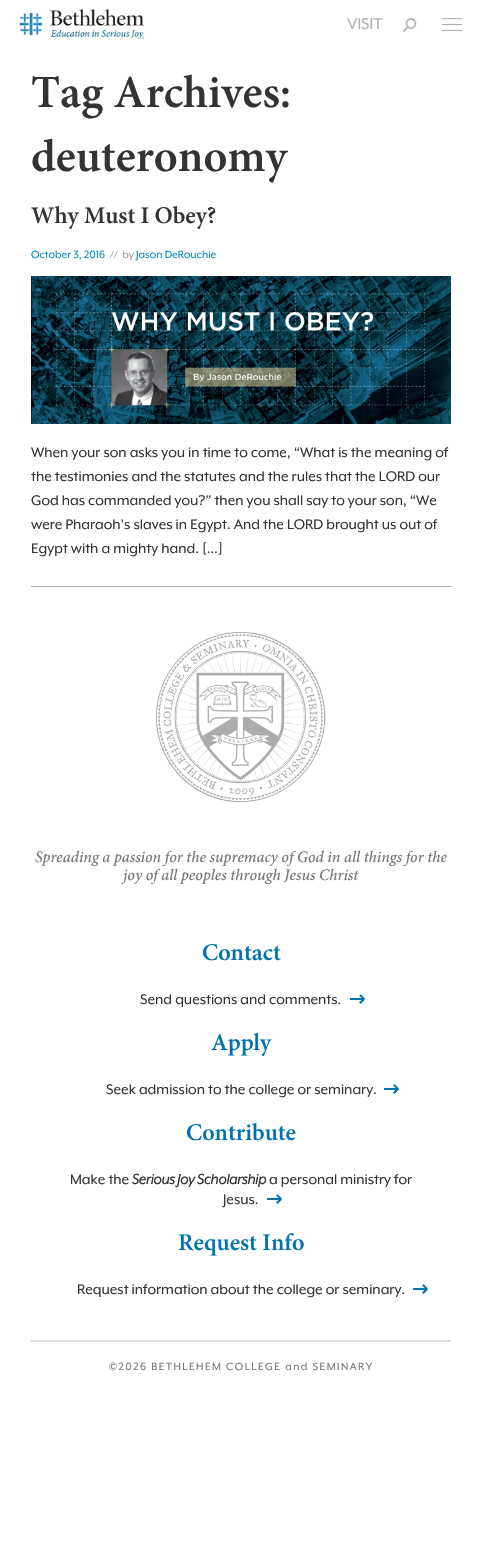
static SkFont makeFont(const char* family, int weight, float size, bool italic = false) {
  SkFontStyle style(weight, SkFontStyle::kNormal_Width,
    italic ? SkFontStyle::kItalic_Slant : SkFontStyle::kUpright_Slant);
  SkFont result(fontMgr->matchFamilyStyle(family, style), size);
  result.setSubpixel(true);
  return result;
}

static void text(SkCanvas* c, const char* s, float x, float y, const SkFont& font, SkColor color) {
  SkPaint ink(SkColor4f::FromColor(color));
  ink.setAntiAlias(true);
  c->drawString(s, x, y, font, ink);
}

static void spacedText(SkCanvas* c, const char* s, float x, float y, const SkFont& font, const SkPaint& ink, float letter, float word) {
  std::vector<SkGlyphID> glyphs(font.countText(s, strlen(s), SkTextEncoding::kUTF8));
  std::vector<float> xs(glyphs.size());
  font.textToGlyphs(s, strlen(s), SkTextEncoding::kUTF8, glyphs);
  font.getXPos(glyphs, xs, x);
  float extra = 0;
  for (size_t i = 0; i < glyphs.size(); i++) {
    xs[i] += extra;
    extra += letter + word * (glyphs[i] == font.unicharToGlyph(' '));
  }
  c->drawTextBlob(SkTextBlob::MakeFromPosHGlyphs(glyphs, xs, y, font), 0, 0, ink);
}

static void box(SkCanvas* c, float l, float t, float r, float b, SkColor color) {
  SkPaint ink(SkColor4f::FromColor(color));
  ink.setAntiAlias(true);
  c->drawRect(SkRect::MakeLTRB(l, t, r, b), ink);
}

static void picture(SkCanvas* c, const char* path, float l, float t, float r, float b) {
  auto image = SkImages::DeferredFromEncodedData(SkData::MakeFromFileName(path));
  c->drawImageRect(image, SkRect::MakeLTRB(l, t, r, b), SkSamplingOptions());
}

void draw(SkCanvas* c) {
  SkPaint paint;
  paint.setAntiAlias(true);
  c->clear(0xffffffff);
  picture(c, "img_01.png", 20, 13, 42, 35);
  picture(c, "img_02.png", 49, 9, 144, 39);
  SkFont face1 = makeFont("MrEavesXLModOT", 400, 18);
  text(c, "VISIT", 347, 29, face1, 0xffb0b0b0);
  picture(c, "img_03.png", 403, 18, 417, 32);
  picture(c, "img_04.png", 442, 18, 462, 31);
  SkFont face2 = makeFont("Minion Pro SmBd", 600, 46);
  text(c, "Tag Archives:", 31, 107, face2, 0xff333333);
  text(c, "deuteronomy", 31, 171, face2, 0xff333333);
  SkFont face3 = makeFont("Minion Pro SmBd", 600, 24);
  text(c, "Why Must I Obey?", 31, 223, face3, 0xff333333);
  SkFont face4 = makeFont("MrEavesXLModOT", 400, 12);
  text(c, "October 3, 2016", 31, 258, face4, 0xff0088cc);
  text(c, "//  by", 110, 258, face4, 0xff999999);
  text(c, "Jason DeRouchie", 136, 258, face4, 0xff0088cc);
  picture(c, "img_05.png", 31, 276, 451, 424);
  SkFont face5 = makeFont("MrEavesXLModOT", 400, 16);
  text(c, "When your son asks you in time to come, “What is the meaning of", 31, 457, face5, 0xff333333);
  text(c, "the testimonies and the statutes and the rules that the LORD our", 31, 481, face5, 0xff333333);
  text(c, "God has commanded you?” then you shall say to your son, “We", 31, 505, face5, 0xff333333);
  text(c, "were Pharaoh’s slaves in Egypt. And the LORD brought us out of", 31, 529, face5, 0xff333333);
  text(c, "Egypt with a mighty hand. […]", 31, 553, face5, 0xff333333);
  box(c, 31, 586, 451, 587, 0xffacacac);
  picture(c, "img_06.png", 156, 632, 326, 802);
  SkFont face6 = makeFont("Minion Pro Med", 500, 16, true);
  text(c, "Spreading a passion for the supremacy of God in all things for the", 35, 862, face6, 0xff777777);
  text(c, "joy of all peoples through Jesus Christ", 123, 880, face6, 0xff777777);
  text(c, "Contact", 202, 960, face3, 0xff0073ae);
  text(c, "Send questions and comments.", 140, 1004, face5, 0xff333333);
  picture(c, "img_07.png", 350, 994, 365, 1004);
  text(c, "Apply", 211, 1050, face3, 0xff0073ae);
  text(c, "Seek admission to the college or seminary.", 106, 1094, face5, 0xff333333);
  picture(c, "img_07.png", 384, 1084, 399, 1094);
  text(c, "Contribute", 186, 1140, face3, 0xff0073ae);
  text(c, "Make the", 70, 1184, face5, 0xff333333);
  SkFont face7 = makeFont("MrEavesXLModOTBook", 700, 16, true);
  text(c, "Serious Joy Scholarship", 132, 1184, face7, 0xff333333);
  text(c, "a personal ministry for", 269, 1184, face5, 0xff333333);
  text(c, "Jesus.", 223, 1204, face5, 0xff333333);
  picture(c, "img_07.png", 267, 1194, 282, 1204);
  text(c, "Request Info", 178, 1250, face3, 0xff0073ae);
  text(c, "Request information about the college or seminary.", 77, 1294, face5, 0xff333333);
  picture(c, "img_07.png", 413, 1284, 428, 1294);
  box(c, 31, 1340, 451, 1342, 0xffdedede);
  paint.setColor(0xff777777);
  spacedText(c, "©2026 BETHLEHEM COLLEGE and SEMINARY", 109, 1370, face4, paint, 1.45f, 0);
}
